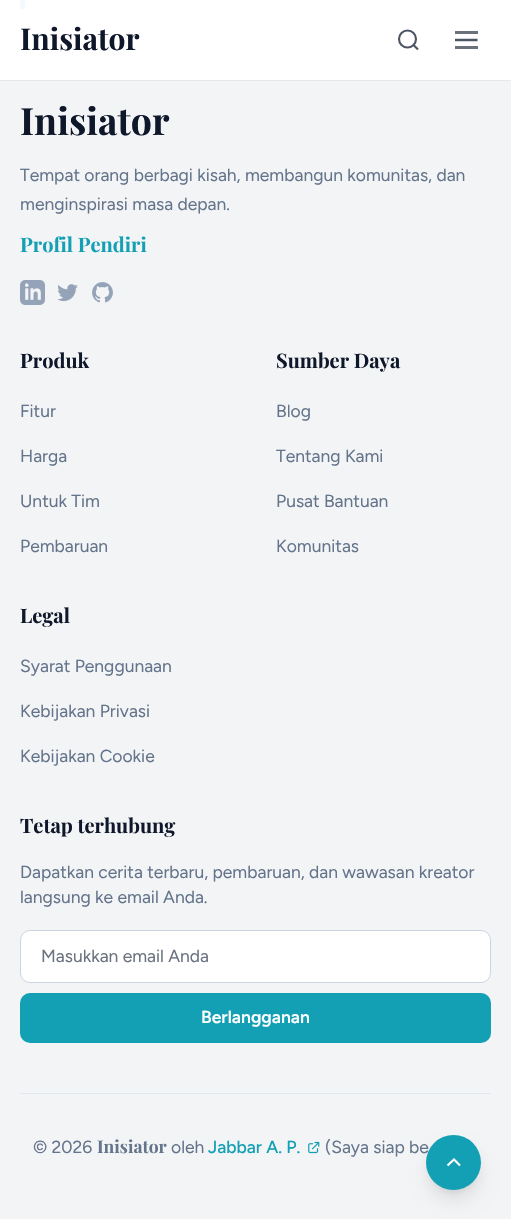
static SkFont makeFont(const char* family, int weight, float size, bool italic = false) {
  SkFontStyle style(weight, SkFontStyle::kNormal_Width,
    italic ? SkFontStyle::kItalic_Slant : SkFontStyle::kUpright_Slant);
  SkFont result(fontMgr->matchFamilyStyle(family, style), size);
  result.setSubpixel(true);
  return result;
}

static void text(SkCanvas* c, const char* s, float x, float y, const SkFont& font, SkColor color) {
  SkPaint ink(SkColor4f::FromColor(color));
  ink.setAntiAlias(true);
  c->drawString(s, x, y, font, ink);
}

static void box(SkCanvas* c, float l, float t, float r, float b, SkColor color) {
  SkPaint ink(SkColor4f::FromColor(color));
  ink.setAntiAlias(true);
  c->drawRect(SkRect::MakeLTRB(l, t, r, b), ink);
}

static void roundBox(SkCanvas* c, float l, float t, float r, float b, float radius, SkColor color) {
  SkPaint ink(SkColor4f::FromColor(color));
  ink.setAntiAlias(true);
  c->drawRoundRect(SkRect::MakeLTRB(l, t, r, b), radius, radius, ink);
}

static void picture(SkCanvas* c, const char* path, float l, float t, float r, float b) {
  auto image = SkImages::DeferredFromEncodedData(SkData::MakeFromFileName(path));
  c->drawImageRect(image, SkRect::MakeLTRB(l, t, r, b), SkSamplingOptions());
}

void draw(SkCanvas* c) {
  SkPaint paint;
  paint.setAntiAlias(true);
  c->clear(0xffffffff);
  box(c, 20, 0, 25, 9, 0xfff3fafb);
  box(c, 0, 80, 511, 81, 0xffe5e7eb);
  SkFont face1 = makeFont("Playfair Display", 700, 30);
  text(c, "Inisiator", 20, 50, face1, 0xff0f172a);
  paint.setStyle(SkPaint::kStroke_Style);
  paint.setStrokeWidth(2.1f);
  paint.setColor(0xff4b5563);
  c->drawCircle(407.5f, 39, 8.5f, paint);
  c->drawPath(SkPathBuilder().moveTo(418, 49.5f).lineTo(413.5f, 45).detach(), paint);
  box(c, 455, 31, 478, 34, 0xff69717d);
  paint.setStrokeWidth(2.5f);
  c->drawPath(SkPathBuilder().moveTo(455, 40).lineTo(477.5f, 40).detach(), paint);
  box(c, 455, 46, 478, 49, 0xff69717d);
  box(c, 0, 81, 511, 1219, 0xfff3f4f6);
  SkFont face2 = makeFont("Playfair Display", 700, 37.5f);
  text(c, "Inisiator", 20, 135, face2, 0xff0f172a);
  SkFont face3 = makeFont("Figtree", 400, 17.5f);
  text(c, "Tempat orang berbagi kisah, membangun komunitas, dan", 20, 181, face3, 0xff64748b);
  text(c, "menginspirasi masa depan.", 20, 210, face3, 0xff64748b);
  SkFont face4 = makeFont("Playfair Display", 700, 20);
  text(c, "Profil Pendiri", 20, 252, face4, 0xff14a0b4);
  picture(c, "img_01.png", 20, 280, 45, 305);
  picture(c, "img_02.png", 57, 284, 78, 302);
  picture(c, "img_03.png", 92, 282, 113, 303);
  text(c, "Produk", 20, 368, face4, 0xff0f172a);
  text(c, "Fitur", 20, 417, face3, 0xff64748b);
  text(c, "Harga", 20, 462, face3, 0xff64748b);
  text(c, "Untuk Tim", 20, 507, face3, 0xff64748b);
  text(c, "Pembaruan", 20, 552, face3, 0xff64748b);
  text(c, "Sumber Daya", 276, 368, face4, 0xff0f172a);
  text(c, "Blog", 276, 417, face3, 0xff64748b);
  text(c, "Tentang Kami", 276, 462, face3, 0xff64748b);
  text(c, "Pusat Bantuan", 276, 507, face3, 0xff64748b);
  text(c, "Komunitas", 276, 552, face3, 0xff64748b);
  text(c, "Legal", 20, 623, face4, 0xff0f172a);
  text(c, "Syarat Penggunaan", 20, 672, face3, 0xff64748b);
  text(c, "Kebijakan Privasi", 20, 717, face3, 0xff64748b);
  text(c, "Kebijakan Cookie", 20, 762, face3, 0xff64748b);
  text(c, "Tetap terhubung", 20, 833, face4, 0xff0f172a);
  text(c, "Dapatkan cerita terbaru, pembaruan, dan wawasan kreator", 20, 878, face3, 0xff64748b);
  text(c, "langsung ke email Anda.", 20, 903, face3, 0xff64748b);
  paint.setStyle(SkPaint::kFill_Style);
  paint.setColor(0xffffffff);
  c->drawRoundRect(SkRect::MakeLTRB(20.5f, 930.5f, 490.5f, 982.5f), 9.5f, 9.5f, paint);
  paint.setStyle(SkPaint::kStroke_Style);
  paint.setStrokeWidth(1);
  paint.setColor(0xffcbd5e1);
  c->drawRoundRect(SkRect::MakeLTRB(20.5f, 930.5f, 490.5f, 982.5f), 9.5f, 9.5f, paint);
  text(c, "Masukkan email Anda", 41, 962, face3, 0xff6b7280);
  roundBox(c, 20, 993, 491, 1043, 10, 0xff14a0b4);
  SkFont face5 = makeFont("Figtree", 600, 17.5f);
  text(c, "Berlangganan", 201, 1023, face5, 0xffffffff);
  box(c, 20, 1093, 491, 1094, 0xffe2e8f0);
  text(c, "© 2026", 33, 1153, face3, 0xff64748b);
  SkFont face6 = makeFont("Playfair Display", 700, 17.5f);
  text(c, "Inisiator", 97, 1153, face6, 0xff64748b);
  text(c, "oleh", 171, 1153, face3, 0xff64748b);
  SkFont face7 = makeFont("Figtree", 500, 17.5f);
  text(c, "Jabbar A. P.", 208, 1153, face7, 0xff14a0b4);
  picture(c, "img_04.png", 308, 1141, 320, 1154);
  text(c, "(Saya siap be", 325, 1153, face3, 0xff64748b);
  paint.setStyle(SkPaint::kFill_Style);
  paint.setColor(0x1a000000);
  paint.setMaskFilter(SkMaskFilter::MakeBlur(kNormal_SkBlurStyle, 4));
  c->drawRoundRect(SkRect::MakeLTRB(431, 1145, 476, 1190), 22.5f, 22.5f, paint);
  paint.setMaskFilter(nullptr);
  paint.setMaskFilter(SkMaskFilter::MakeBlur(kNormal_SkBlurStyle, 9.5f));
  c->drawRoundRect(SkRect::MakeLTRB(430, 1151, 478, 1199), 24, 24, paint);
  paint.setMaskFilter(nullptr);
  paint.setColor(0xff14a0b4);
  c->drawCircle(453.5f, 1162.5f, 27.5f, paint);
  paint.setStyle(SkPaint::kStroke_Style);
  paint.setStrokeWidth(2.1f);
  paint.setColor(0xffffffff);
  c->drawPath(SkPathBuilder().moveTo(460, 1165.5f).lineTo(454, 1159.5f).lineTo(447.5f, 1165.5f).detach(), paint);
}
